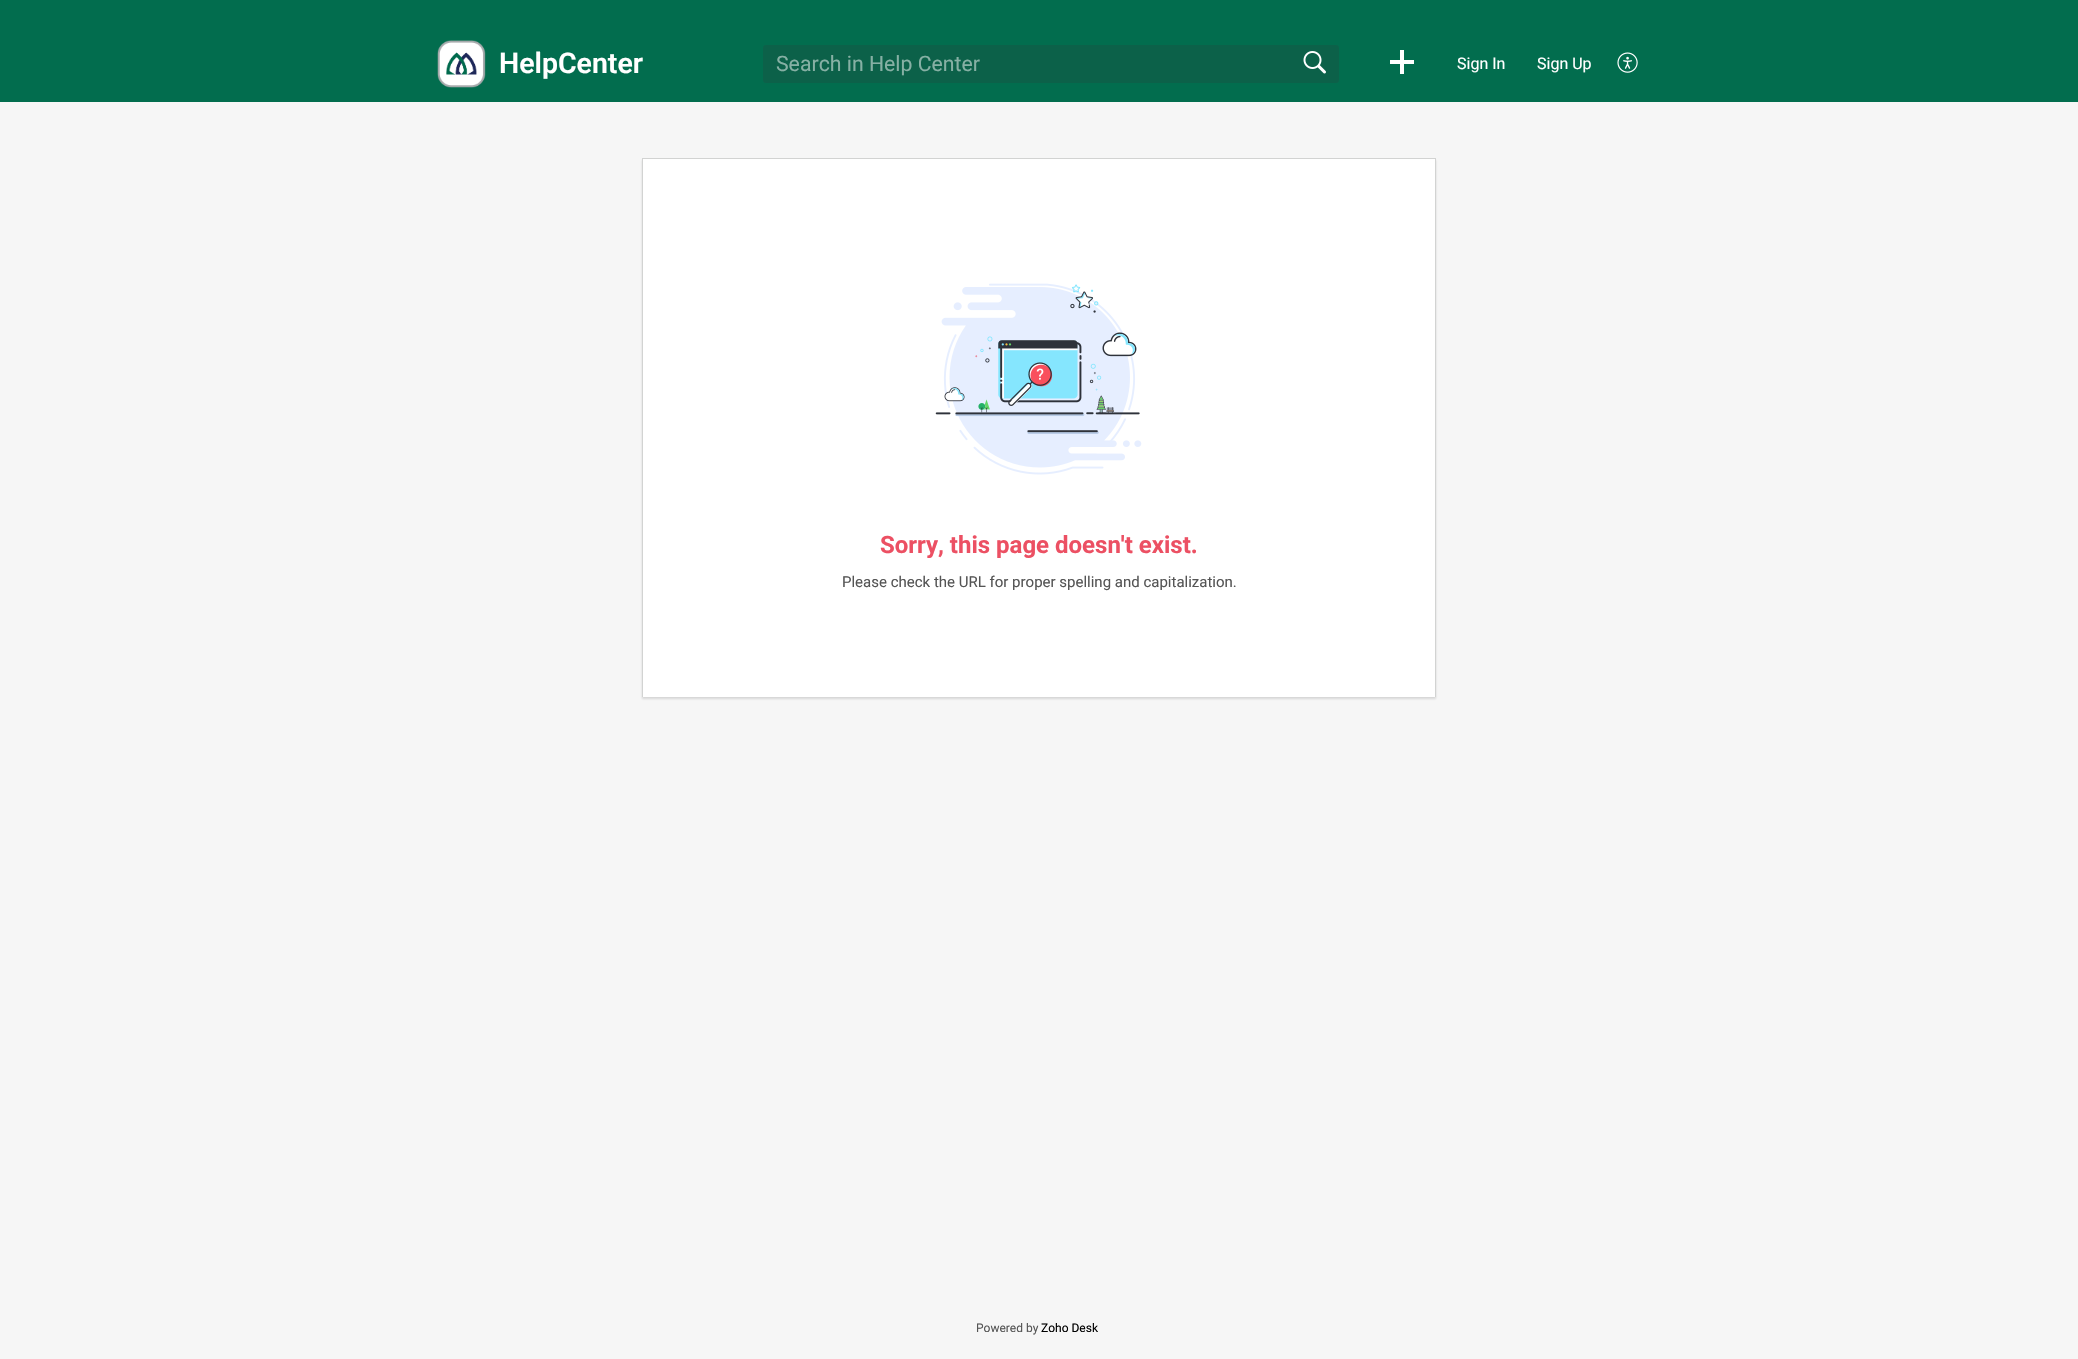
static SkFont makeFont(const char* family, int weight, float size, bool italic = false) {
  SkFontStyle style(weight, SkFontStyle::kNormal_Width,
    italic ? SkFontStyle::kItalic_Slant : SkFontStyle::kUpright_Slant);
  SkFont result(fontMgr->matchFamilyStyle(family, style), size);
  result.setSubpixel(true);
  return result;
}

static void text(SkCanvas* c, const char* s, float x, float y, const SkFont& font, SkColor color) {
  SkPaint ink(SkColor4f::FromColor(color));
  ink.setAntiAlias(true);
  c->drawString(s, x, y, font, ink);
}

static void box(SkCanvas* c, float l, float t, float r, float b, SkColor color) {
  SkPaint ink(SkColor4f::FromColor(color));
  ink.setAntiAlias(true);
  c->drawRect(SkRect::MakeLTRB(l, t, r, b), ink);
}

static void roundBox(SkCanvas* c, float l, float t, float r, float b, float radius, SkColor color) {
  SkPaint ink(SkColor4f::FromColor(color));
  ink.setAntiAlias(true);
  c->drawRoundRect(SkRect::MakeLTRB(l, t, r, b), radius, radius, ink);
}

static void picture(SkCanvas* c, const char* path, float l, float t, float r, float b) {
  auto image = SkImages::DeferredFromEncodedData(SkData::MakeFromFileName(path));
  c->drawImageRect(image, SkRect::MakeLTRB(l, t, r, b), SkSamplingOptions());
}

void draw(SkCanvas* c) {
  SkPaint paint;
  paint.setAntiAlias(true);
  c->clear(0xfff6f6f6);
  box(c, 0, 0, 2078, 102, 0xff026d4e);
  picture(c, "img_01.png", 437, 40, 486, 88);
  SkFont face1 = makeFont("Roboto", 600, 28.5f);
  text(c, "HelpCenter", 499, 73, face1, 0xffffffff);
  roundBox(c, 763, 45, 1339, 83, 3, 0xff0c6149);
  SkFont face2 = makeFont("Roboto", 400, 21.25f);
  text(c, "Search in Help Center", 776, 71, face2, 0xff86b0a4);
  picture(c, "img_02.png", 1303, 51, 1326, 74);
  picture(c, "img_03.png", 1390, 50, 1414, 74);
  SkFont face3 = makeFont("Roboto", 400, 16);
  text(c, "Sign In", 1457, 69, face3, 0xffffffff);
  text(c, "Sign Up", 1537, 69, face3, 0xffffffff);
  picture(c, "img_04.png", 1617, 52, 1638, 73);
  paint.setColor(0x26202320);
  paint.setMaskFilter(SkMaskFilter::MakeBlur(kNormal_SkBlurStyle, 1));
  c->drawRect(SkRect::MakeLTRB(642, 160, 1436, 699), paint);
  paint.setMaskFilter(nullptr);
  box(c, 643, 159, 1435, 697, 0xffffffff);
  box(c, 642, 158, 1436, 159, 0xffd2d3d2);
  box(c, 1435, 158, 1436, 697, 0xffd2d3d2);
  box(c, 642, 158, 643, 697, 0xffd2d3d2);
  picture(c, "img_05.png", 935, 283, 1142, 475);
  SkFont face4 = makeFont("Roboto", 700, 24);
  text(c, "Sorry, this page doesn't exist.", 880, 553, face4, 0xffec5063);
  SkFont face5 = makeFont("Roboto", 400, 15);
  text(c, "Please check the URL for proper spelling and capitalization.", 842, 587, face5, 0xff555555);
  SkFont face6 = makeFont("Roboto", 400, 12);
  text(c, "Powered by", 976, 1332, face6, 0xff555555);
  text(c, "Zoho Desk", 1041, 1332, face6, 0xff000000);
}
